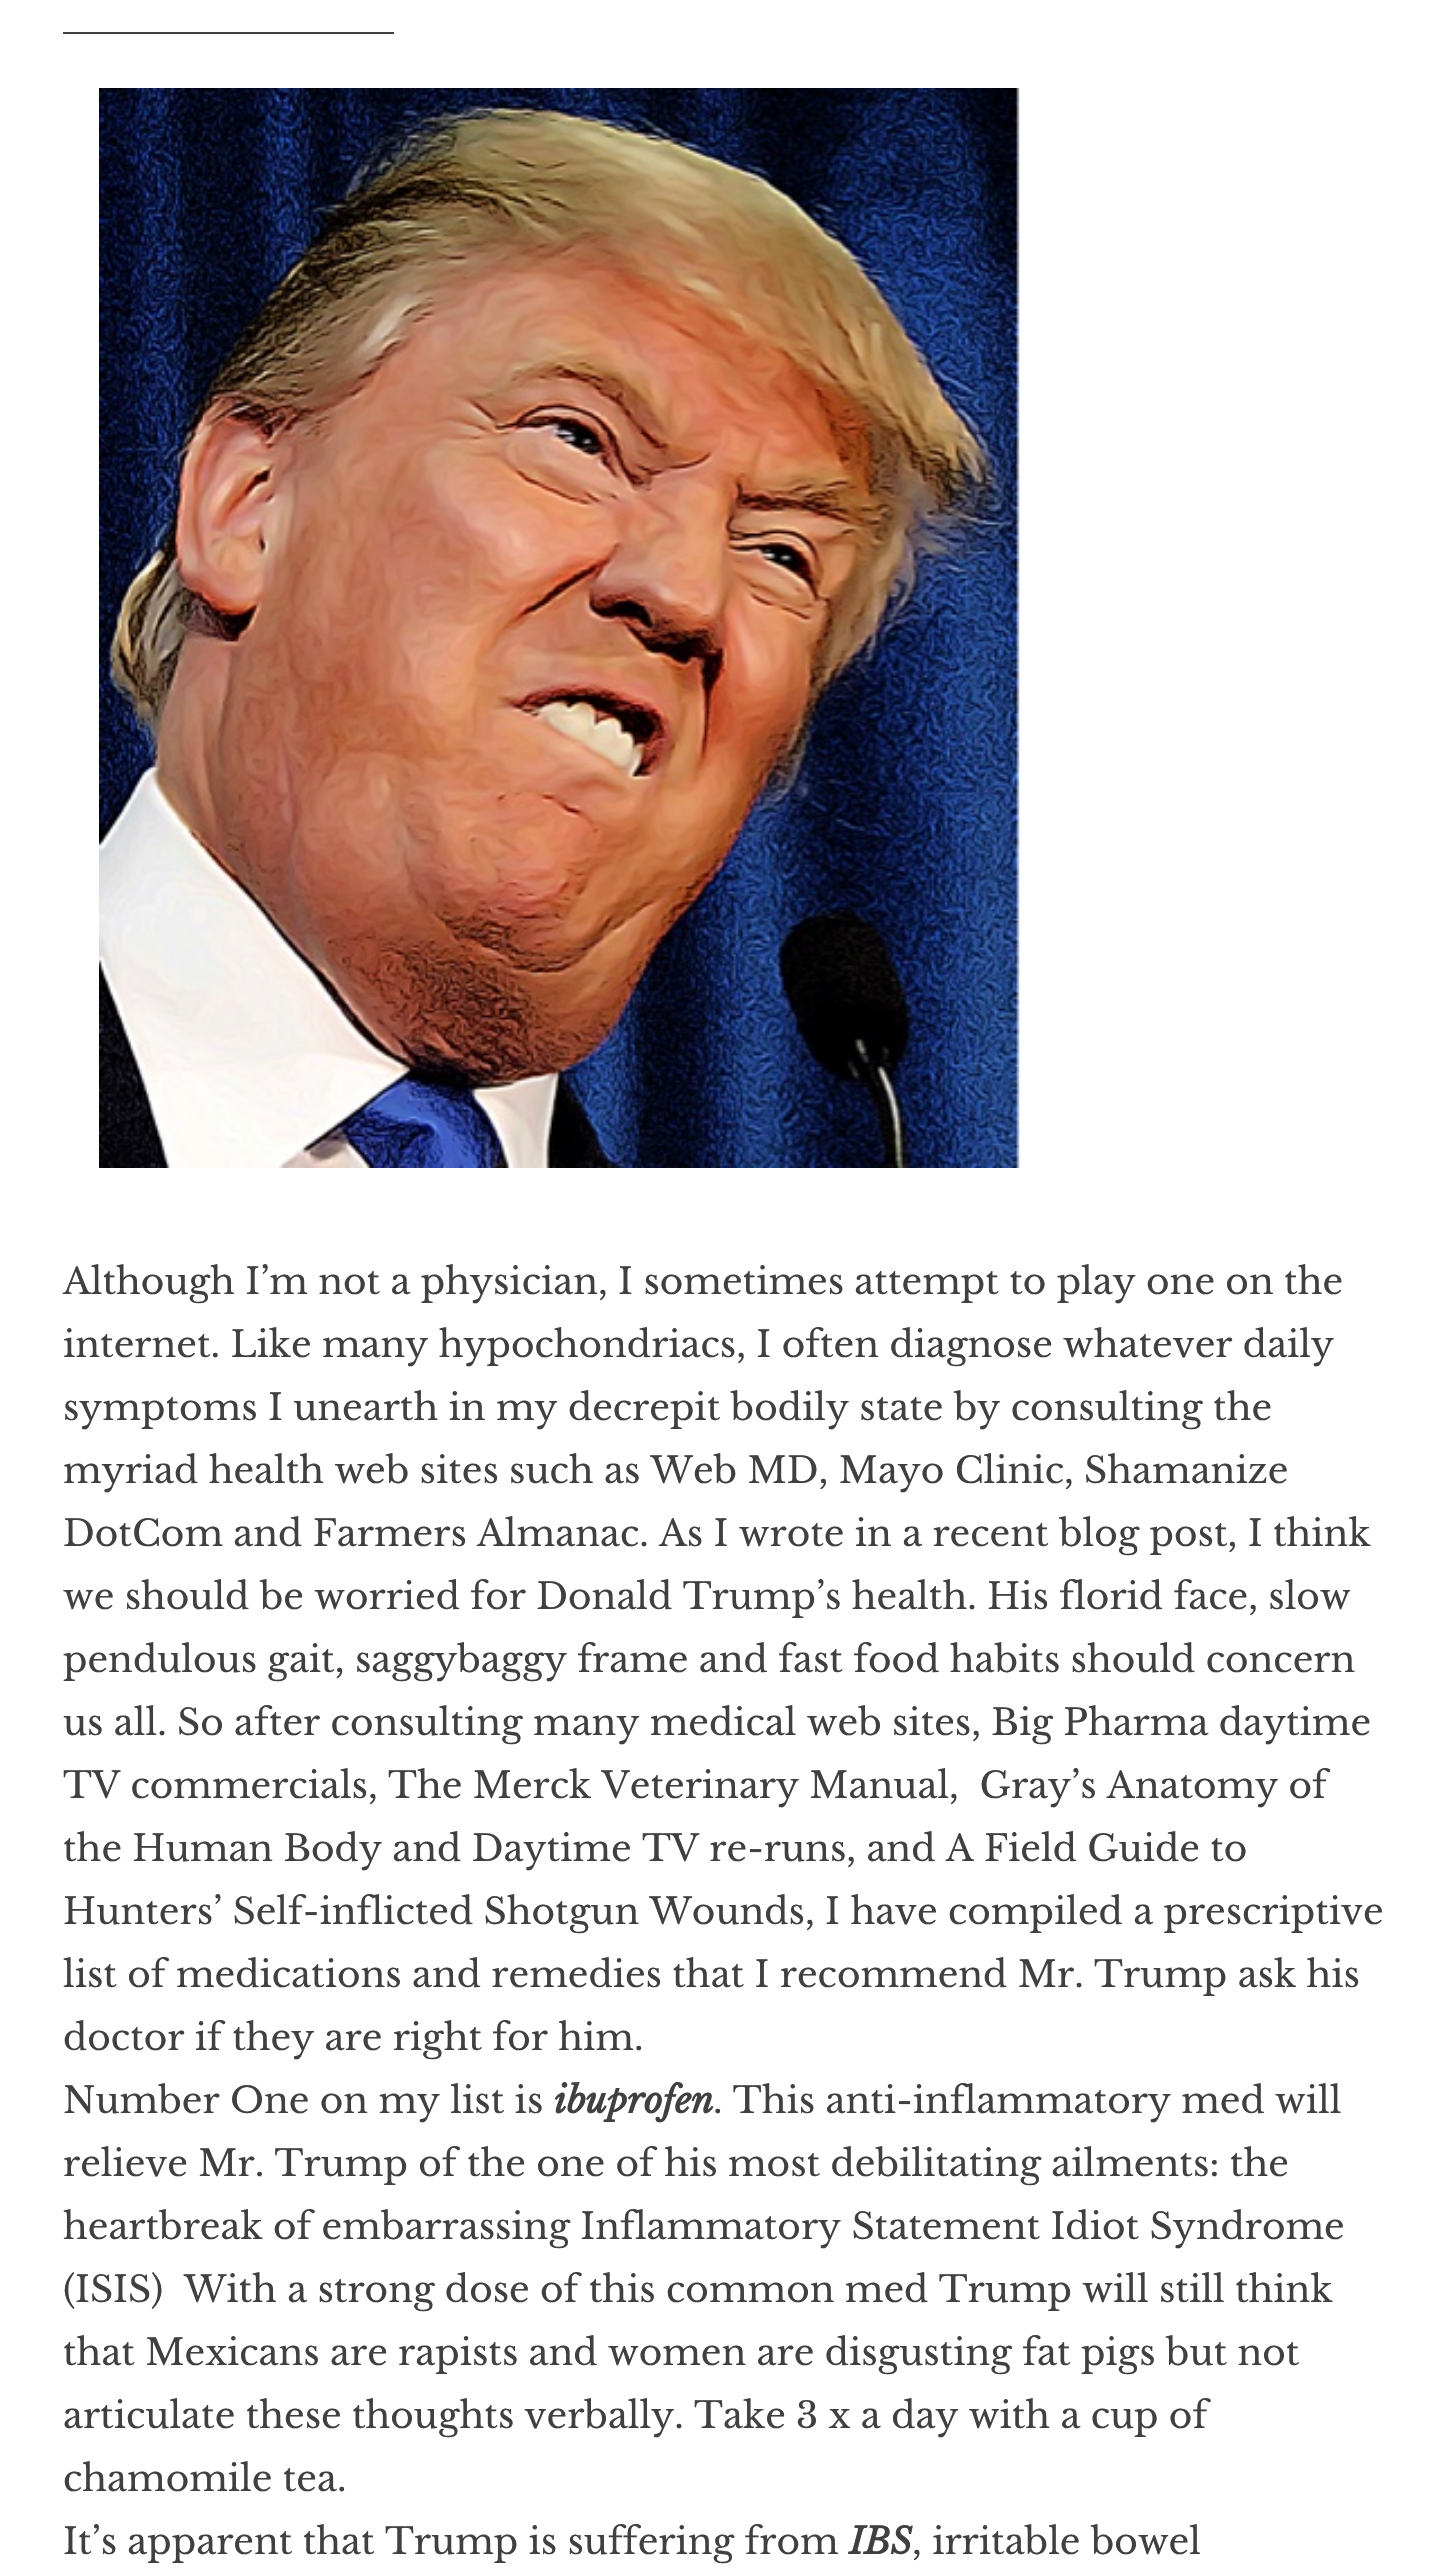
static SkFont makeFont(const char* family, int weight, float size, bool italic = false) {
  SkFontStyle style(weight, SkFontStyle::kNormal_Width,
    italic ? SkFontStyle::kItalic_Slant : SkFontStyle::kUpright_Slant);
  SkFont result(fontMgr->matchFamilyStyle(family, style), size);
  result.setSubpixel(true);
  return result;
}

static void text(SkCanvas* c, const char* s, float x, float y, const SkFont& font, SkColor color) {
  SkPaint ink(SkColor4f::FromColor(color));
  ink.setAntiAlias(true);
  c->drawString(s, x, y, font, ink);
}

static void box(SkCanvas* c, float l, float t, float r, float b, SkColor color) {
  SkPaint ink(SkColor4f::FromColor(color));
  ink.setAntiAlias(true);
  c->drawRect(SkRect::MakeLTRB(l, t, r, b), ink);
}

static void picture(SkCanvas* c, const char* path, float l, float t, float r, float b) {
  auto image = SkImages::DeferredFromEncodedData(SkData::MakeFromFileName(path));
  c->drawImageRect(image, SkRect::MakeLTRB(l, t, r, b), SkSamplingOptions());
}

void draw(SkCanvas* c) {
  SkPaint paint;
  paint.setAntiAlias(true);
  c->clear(0xffffffff);
  box(c, 63, 32, 394, 34, 0xff404040);
  picture(c, "img_01.png", 99, 88, 1020, 1168);
  SkFont face1 = makeFont("Libre Baskerville", 400, 36);
  text(c, "Although I’m not a physician, I sometimes attempt to play one on the", 63, 1294, face1, 0xff404040);
  text(c, "internet. Like many hypochondriacs, I often diagnose whatever daily", 63, 1357, face1, 0xff404040);
  text(c, "symptoms I unearth in my decrepit bodily state by consulting the", 63, 1420, face1, 0xff404040);
  text(c, "myriad health web sites such as Web MD, Mayo Clinic, Shamanize", 63, 1483, face1, 0xff404040);
  text(c, "DotCom and Farmers Almanac. As I wrote in a recent blog post, I think", 63, 1546, face1, 0xff404040);
  text(c, "we should be worried for Donald Trump’s health. His florid face, slow", 63, 1609, face1, 0xff404040);
  text(c, "pendulous gait, saggybaggy frame and fast food habits should concern", 63, 1672, face1, 0xff404040);
  text(c, "us all. So after consulting many medical web sites, Big Pharma daytime", 63, 1735, face1, 0xff404040);
  text(c, "TV commercials, The Merck Veterinary Manual,  Gray’s Anatomy of", 63, 1798, face1, 0xff404040);
  text(c, "the Human Body and Daytime TV re-runs, and A Field Guide to", 63, 1861, face1, 0xff404040);
  text(c, "Hunters’ Self-inflicted Shotgun Wounds, I have compiled a prescriptive", 63, 1924, face1, 0xff404040);
  text(c, "list of medications and remedies that I recommend Mr. Trump ask his", 63, 1987, face1, 0xff404040);
  text(c, "doctor if they are right for him.", 63, 2050, face1, 0xff404040);
  text(c, "Number One on my list is", 63, 2113, face1, 0xff404040);
  SkFont face2 = makeFont("Libre Baskerville", 700, 36, true);
  text(c, "ibuprofen", 554, 2113, face2, 0xff404040);
  text(c, ". This anti-inflammatory med will", 713, 2113, face1, 0xff404040);
  text(c, "relieve Mr. Trump of the one of his most debilitating ailments: the", 63, 2176, face1, 0xff404040);
  text(c, "heartbreak of embarrassing Inflammatory Statement Idiot Syndrome", 63, 2239, face1, 0xff404040);
  text(c, "(ISIS)  With a strong dose of this common med Trump will still think", 63, 2302, face1, 0xff404040);
  text(c, "that Mexicans are rapists and women are disgusting fat pigs but not", 63, 2365, face1, 0xff404040);
  text(c, "articulate these thoughts verbally. Take 3 x a day with a cup of", 63, 2428, face1, 0xff404040);
  text(c, "chamomile tea.", 63, 2491, face1, 0xff404040);
  text(c, "It’s apparent that Trump is suffering from", 63, 2554, face1, 0xff404040);
  text(c, "IBS", 849, 2554, face2, 0xff404040);
  text(c, ", irritable bowel", 912, 2554, face1, 0xff404040);
}
